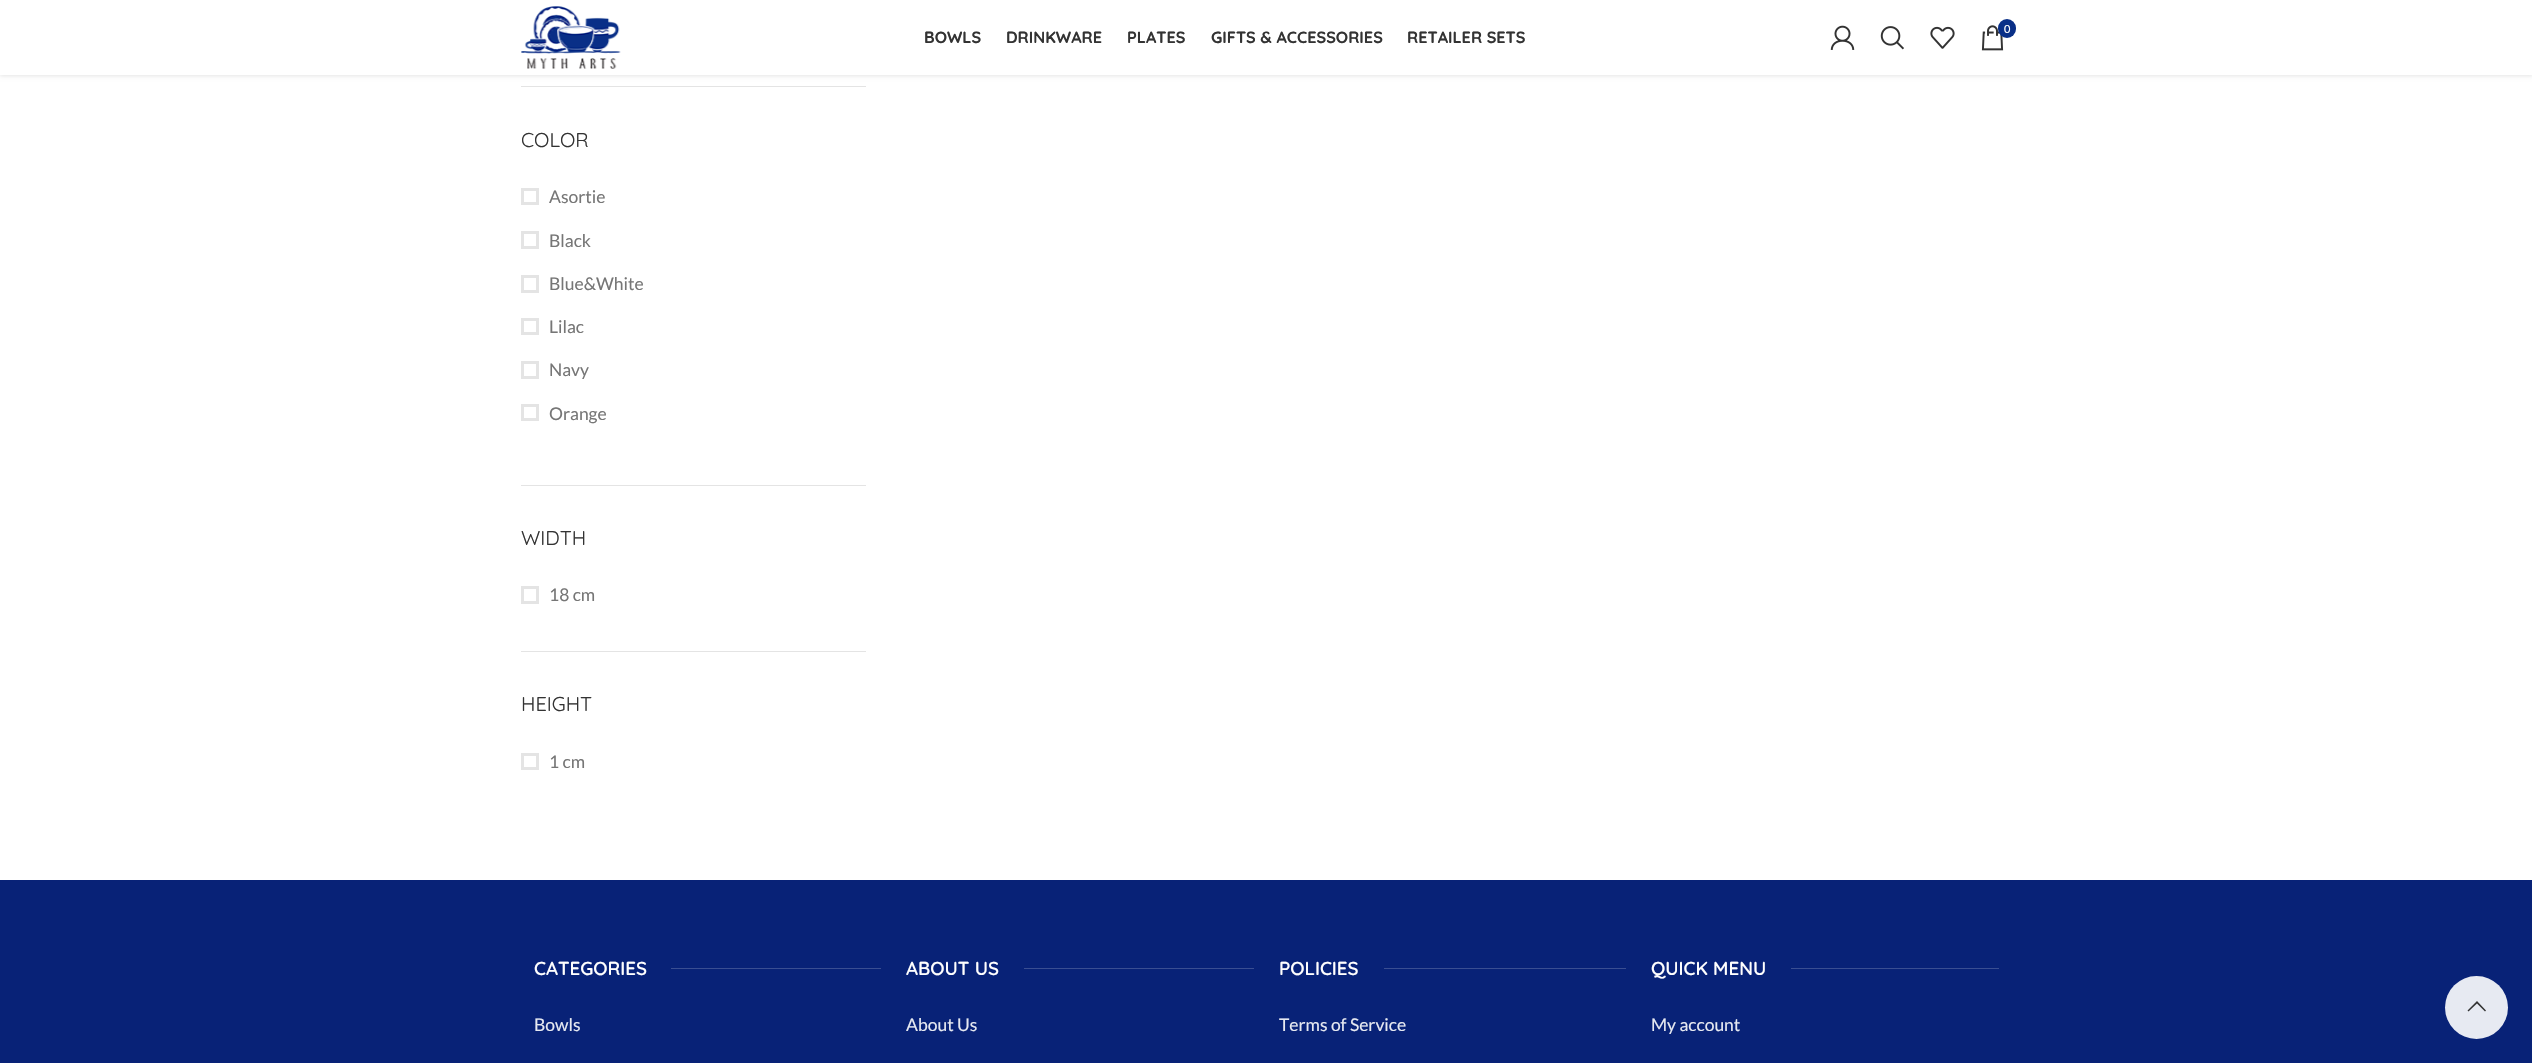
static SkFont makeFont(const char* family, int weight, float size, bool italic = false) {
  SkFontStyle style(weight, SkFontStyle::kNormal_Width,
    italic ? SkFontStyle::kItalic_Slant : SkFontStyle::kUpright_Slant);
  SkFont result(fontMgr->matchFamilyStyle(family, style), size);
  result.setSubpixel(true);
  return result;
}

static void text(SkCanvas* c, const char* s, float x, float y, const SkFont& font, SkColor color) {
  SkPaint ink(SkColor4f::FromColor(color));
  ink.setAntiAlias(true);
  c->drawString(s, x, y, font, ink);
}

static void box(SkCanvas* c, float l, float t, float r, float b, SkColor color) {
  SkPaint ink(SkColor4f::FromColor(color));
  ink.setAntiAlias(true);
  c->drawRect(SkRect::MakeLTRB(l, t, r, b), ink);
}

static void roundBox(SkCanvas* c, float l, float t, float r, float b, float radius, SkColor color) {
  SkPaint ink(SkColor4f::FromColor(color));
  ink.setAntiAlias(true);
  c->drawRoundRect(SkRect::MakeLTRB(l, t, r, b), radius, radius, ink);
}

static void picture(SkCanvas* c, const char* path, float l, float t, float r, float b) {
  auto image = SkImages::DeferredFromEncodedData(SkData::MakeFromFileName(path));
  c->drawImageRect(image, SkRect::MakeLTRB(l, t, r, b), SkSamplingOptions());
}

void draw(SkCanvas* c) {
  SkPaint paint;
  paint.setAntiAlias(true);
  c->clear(0xffffffff);
  paint.setColor(0x1a000000);
  paint.setMaskFilter(SkMaskFilter::MakeBlur(kNormal_SkBlurStyle, 2));
  c->drawRect(SkRect::MakeLTRB(0, 1, 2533, 76), paint);
  paint.setMaskFilter(nullptr);
  box(c, 0, 0, 2532, 75, 0xffffffff);
  picture(c, "img_01.png", 521, 6, 621, 69);
  picture(c, "img_02.png", 1830, 25, 1855, 50);
  picture(c, "img_03.png", 1880, 26, 1904, 50);
  picture(c, "img_04.png", 1930, 26, 1955, 49);
  picture(c, "img_05.png", 1981, 25, 2004, 51);
  roundBox(c, 1998, 19, 2016, 38, 9, 0xff092f87);
  SkFont face1 = makeFont("Lato", 400, 11);
  text(c, "0", 2004, 33, face1, 0xffffffff);
  SkFont face2 = makeFont("Quicksand", 700, 16.25f);
  text(c, "BOWLS", 924, 43, face2, 0xff333333);
  text(c, "DRINKWARE", 1006, 43, face2, 0xff333333);
  text(c, "PLATES", 1127, 43, face2, 0xff333333);
  text(c, "GIFTS & ACCESSORIES", 1211, 43, face2, 0xff333333);
  text(c, "RETAILER SETS", 1407, 43, face2, 0xff333333);
  box(c, 521, 86, 866, 87, 0xffe4e4e4);
  box(c, 521, 485, 866, 486, 0xffe4e4e4);
  SkFont face3 = makeFont("Quicksand", 400, 20);
  text(c, "COLOR", 521, 147, face3, 0xff333333);
  paint.setStyle(SkPaint::kStroke_Style);
  paint.setStrokeWidth(3);
  paint.setColor(0xffe4e4e4);
  c->drawRect(SkRect::MakeLTRB(522.5f, 189.5f, 537.5f, 203.5f), paint);
  SkFont face4 = makeFont("Lato", 400, 17.5f);
  text(c, "Asortie", 549, 203, face4, 0xff767676);
  c->drawRect(SkRect::MakeLTRB(522.5f, 232.5f, 537.5f, 247.5f), paint);
  text(c, "Black", 549, 247, face4, 0xff767676);
  c->drawRect(SkRect::MakeLTRB(522.5f, 276.5f, 537.5f, 291.5f), paint);
  text(c, "Blue&White", 549, 290, face4, 0xff767676);
  c->drawRect(SkRect::MakeLTRB(522.5f, 319.5f, 537.5f, 333.5f), paint);
  text(c, "Lilac", 549, 333, face4, 0xff767676);
  c->drawRect(SkRect::MakeLTRB(522.5f, 362.5f, 537.5f, 377.5f), paint);
  text(c, "Navy", 549, 376, face4, 0xff767676);
  c->drawRect(SkRect::MakeLTRB(522.5f, 405.5f, 537.5f, 419.5f), paint);
  text(c, "Orange", 549, 420, face4, 0xff767676);
  box(c, 521, 651, 866, 652, 0xffe4e4e4);
  text(c, "WIDTH", 521, 545, face3, 0xff333333);
  c->drawRect(SkRect::MakeLTRB(522.5f, 587.5f, 537.5f, 602.5f), paint);
  text(c, "18 cm", 549, 601, face4, 0xff767676);
  text(c, "HEIGHT", 521, 711, face3, 0xff333333);
  c->drawRect(SkRect::MakeLTRB(522.5f, 754.5f, 537.5f, 768.5f), paint);
  text(c, "1 cm", 549, 768, face4, 0xff767676);
  box(c, 0, 880, 2532, 1063, 0xff082277);
  SkFont face5 = makeFont("Quicksand", 600, 18.75f);
  text(c, "CATEGORIES", 534, 975, face5, 0xffffffff);
  box(c, 671, 968, 881, 969, 0xff394e92);
  text(c, "Bowls", 534, 1031, face4, 0xffe6e9f1);
  text(c, "ABOUT US", 906, 975, face5, 0xffffffff);
  box(c, 1024, 968, 1254, 969, 0xff394e92);
  text(c, "About Us", 906, 1031, face4, 0xffe6e9f1);
  text(c, "POLICIES", 1279, 975, face5, 0xffffffff);
  box(c, 1384, 968, 1626, 969, 0xff394e92);
  text(c, "Terms of Service", 1279, 1031, face4, 0xffe6e9f1);
  text(c, "QUICK MENU", 1651, 975, face5, 0xffffffff);
  box(c, 1791, 968, 1999, 969, 0xff394e92);
  text(c, "My account", 1651, 1031, face4, 0xffe6e9f1);
  paint.setStyle(SkPaint::kFill_Style);
  paint.setColor(0xe6ffffff);
  c->drawCircle(2476.5f, 1007.5f, 31.5f, paint);
  paint.setColor(0xff333333);
  c->drawPath(SkPathBuilder().moveTo(2485, 1011.5f).lineTo(2486, 1010.5f).lineTo(2477, 1001).lineTo(2467.5f, 1010.5f).lineTo(2468.5f, 1011.5f).lineTo(2477, 1003.5f).close().detach(), paint);
}
